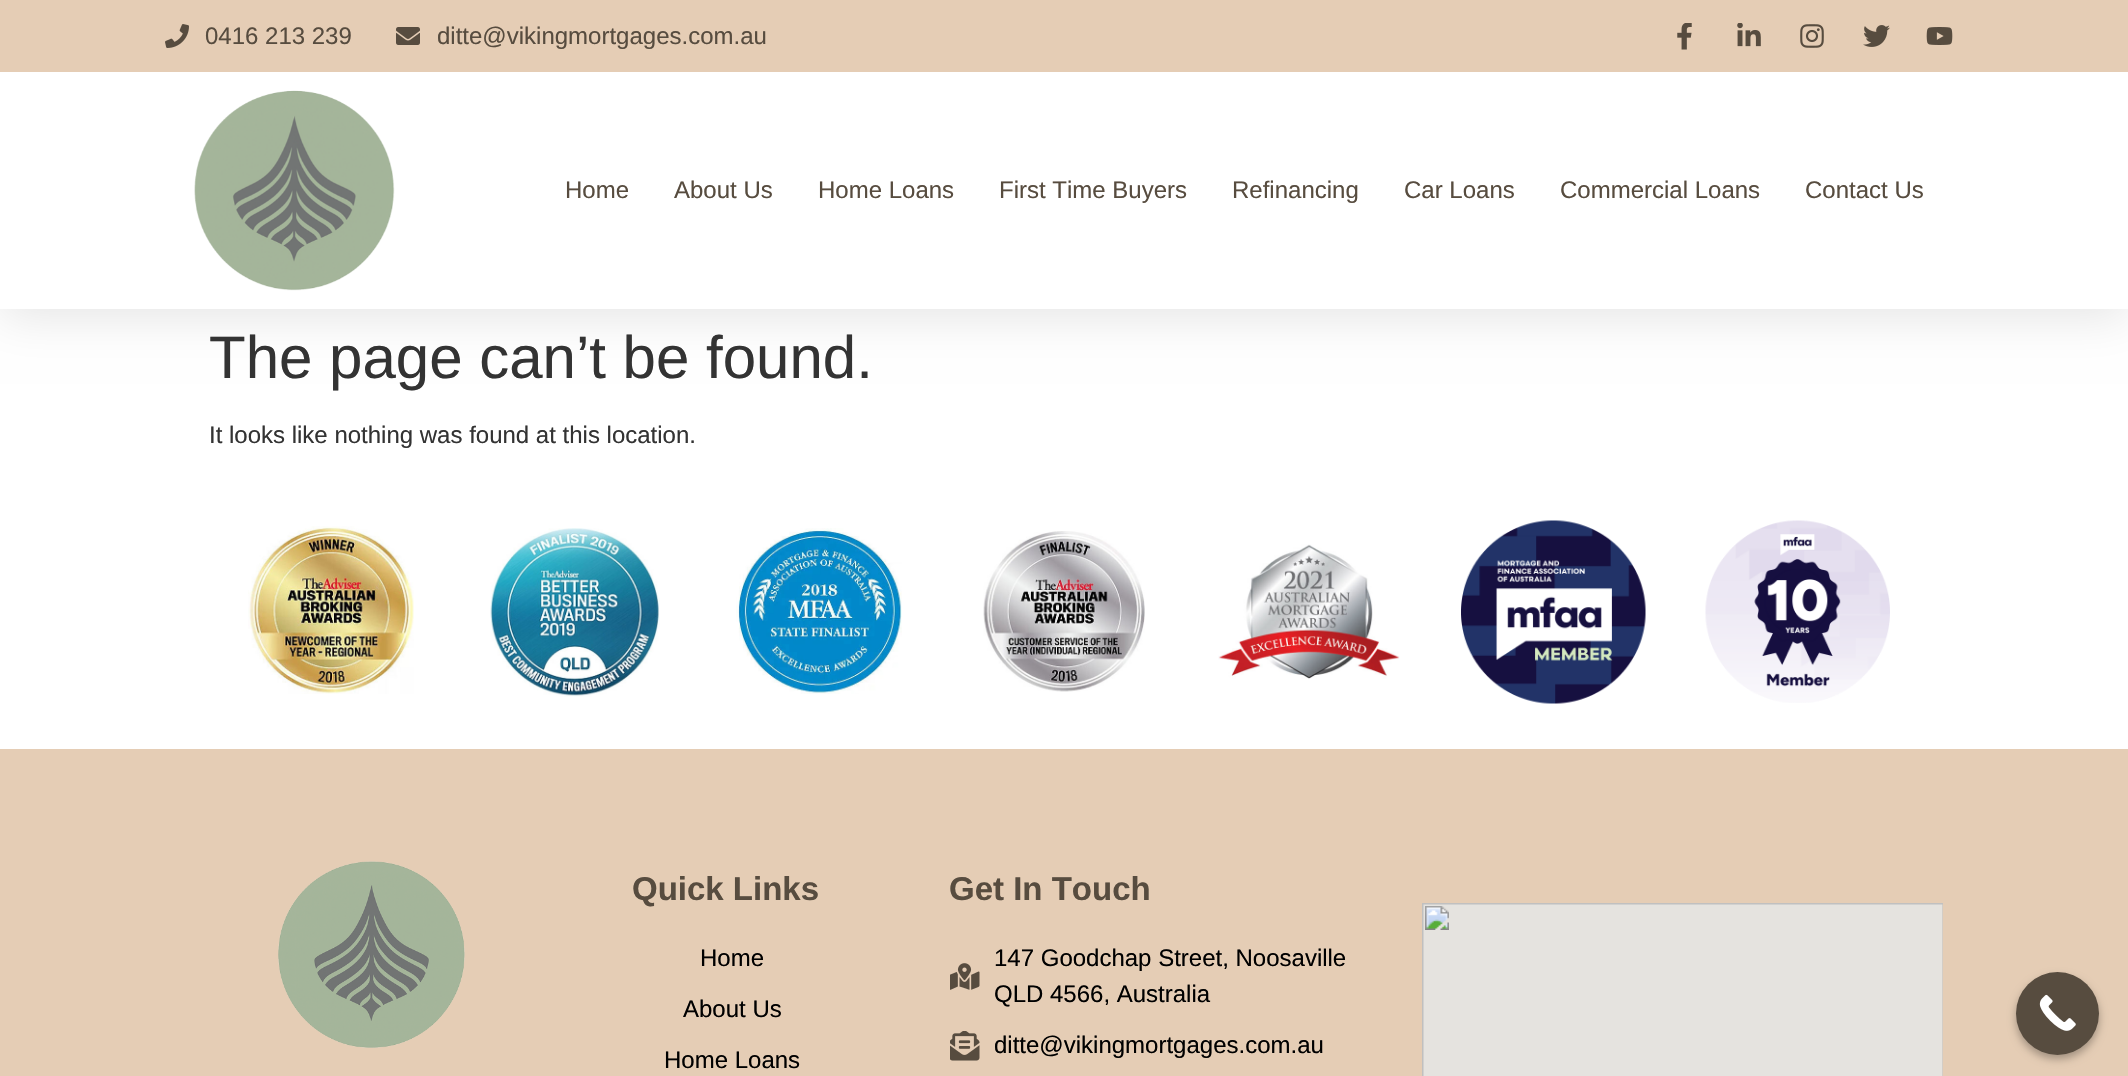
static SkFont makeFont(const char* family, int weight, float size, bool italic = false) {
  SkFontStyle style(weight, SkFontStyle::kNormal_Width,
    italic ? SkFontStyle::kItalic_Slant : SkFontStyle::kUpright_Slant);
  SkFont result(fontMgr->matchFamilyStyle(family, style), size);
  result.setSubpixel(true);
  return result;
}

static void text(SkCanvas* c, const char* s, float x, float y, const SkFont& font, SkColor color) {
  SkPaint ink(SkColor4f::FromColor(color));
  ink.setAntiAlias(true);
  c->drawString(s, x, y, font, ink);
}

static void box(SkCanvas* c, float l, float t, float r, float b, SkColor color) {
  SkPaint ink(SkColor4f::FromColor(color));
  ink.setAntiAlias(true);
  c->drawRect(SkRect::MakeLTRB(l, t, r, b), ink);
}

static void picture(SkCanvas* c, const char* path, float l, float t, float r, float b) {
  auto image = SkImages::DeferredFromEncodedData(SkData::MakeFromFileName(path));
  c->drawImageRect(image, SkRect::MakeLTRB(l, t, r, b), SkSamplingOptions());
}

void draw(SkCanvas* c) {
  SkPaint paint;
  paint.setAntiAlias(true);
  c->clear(0xffffffff);
  paint.setColor(0x1a000000);
  paint.setMaskFilter(SkMaskFilter::MakeBlur(kNormal_SkBlurStyle, 22.5f));
  c->drawRect(SkRect::MakeLTRB(0, 8, 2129, 317), paint);
  paint.setMaskFilter(nullptr);
  box(c, 0, 0, 2128, 72, 0xffe5cdb5);
  picture(c, "img_01.png", 165, 24, 189, 48);
  SkFont face1 = makeFont("Liberation Sans", 400, 24);
  text(c, "0416 213 239", 205, 44, face1, 0xff574c3f);
  picture(c, "img_02.png", 396, 27, 420, 45);
  text(c, "ditte@vikingmortgages.com.au", 437, 44, face1, 0xff574c3f);
  picture(c, "img_03.png", 1677, 23, 1692, 50);
  picture(c, "img_04.png", 1737, 23, 1761, 47);
  picture(c, "img_05.png", 1800, 24, 1824, 48);
  picture(c, "img_06.png", 1863, 25, 1890, 47);
  picture(c, "img_07.png", 1926, 27, 1953, 45);
  box(c, 0, 72, 2128, 309, 0xffffffff);
  picture(c, "img_08.png", 194, 90, 395, 291);
  text(c, "Home", 565, 198, face1, 0xff574c3f);
  text(c, "About Us", 674, 198, face1, 0xff574c3f);
  text(c, "Home Loans", 818, 198, face1, 0xff574c3f);
  text(c, "First Time Buyers", 999, 198, face1, 0xff574c3f);
  text(c, "Refinancing", 1232, 198, face1, 0xff574c3f);
  text(c, "Car Loans", 1404, 198, face1, 0xff574c3f);
  text(c, "Commercial Loans", 1560, 198, face1, 0xff574c3f);
  text(c, "Contact Us", 1805, 198, face1, 0xff574c3f);
  SkFont face2 = makeFont("Liberation Sans", 400, 60);
  text(c, "The page can’t be found.", 209, 378, face2, 0xff333333);
  text(c, "It looks like nothing was found at this location.", 209, 443, face1, 0xff333333);
  picture(c, "img_09.png", 248, 526, 414, 694);
  picture(c, "img_10.png", 490, 528, 660, 697);
  picture(c, "img_11.png", 736, 528, 902, 694);
  picture(c, "img_12.png", 983, 531, 1145, 692);
  picture(c, "img_13.png", 1218, 544, 1400, 679);
  picture(c, "img_14.png", 1461, 520, 1646, 704);
  picture(c, "img_15.png", 1705, 520, 1890, 703);
  box(c, 0, 749, 2128, 1076, 0xffe5cdb5);
  picture(c, "img_16.png", 278, 861, 465, 1048);
  SkFont face3 = makeFont("Liberation Sans", 700, 33);
  text(c, "Quick Links", 632, 900, face3, 0xff574c3f);
  text(c, "Home", 700, 966, face1, 0xff000000);
  text(c, "About Us", 683, 1017, face1, 0xff000000);
  text(c, "Home Loans", 664, 1068, face1, 0xff000000);
  text(c, "Get In Touch", 949, 900, face3, 0xff574c3f);
  picture(c, "img_17.png", 950, 963, 980, 990);
  text(c, "147 Goodchap Street, Noosaville", 994, 966, face1, 0xff000000);
  text(c, "QLD 4566, Australia", 994, 1002, face1, 0xff000000);
  picture(c, "img_18.png", 950, 1031, 980, 1061);
  text(c, "ditte@vikingmortgages.com.au", 994, 1053, face1, 0xff000000);
  picture(c, "img_19.png", 1422, 903, 1943, 1076);
  paint.setColor(0x4d000000);
  paint.setMaskFilter(SkMaskFilter::MakeBlur(kNormal_SkBlurStyle, 4.5f));
  c->drawRoundRect(SkRect::MakeLTRB(2016, 977, 2099, 1059), 41, 41, paint);
  paint.setMaskFilter(nullptr);
  paint.setColor(0xff574c3f);
  c->drawCircle(2057.5f, 1013.5f, 41.5f, paint);
  picture(c, "img_20.png", 2039, 994, 2076, 1031);
}
